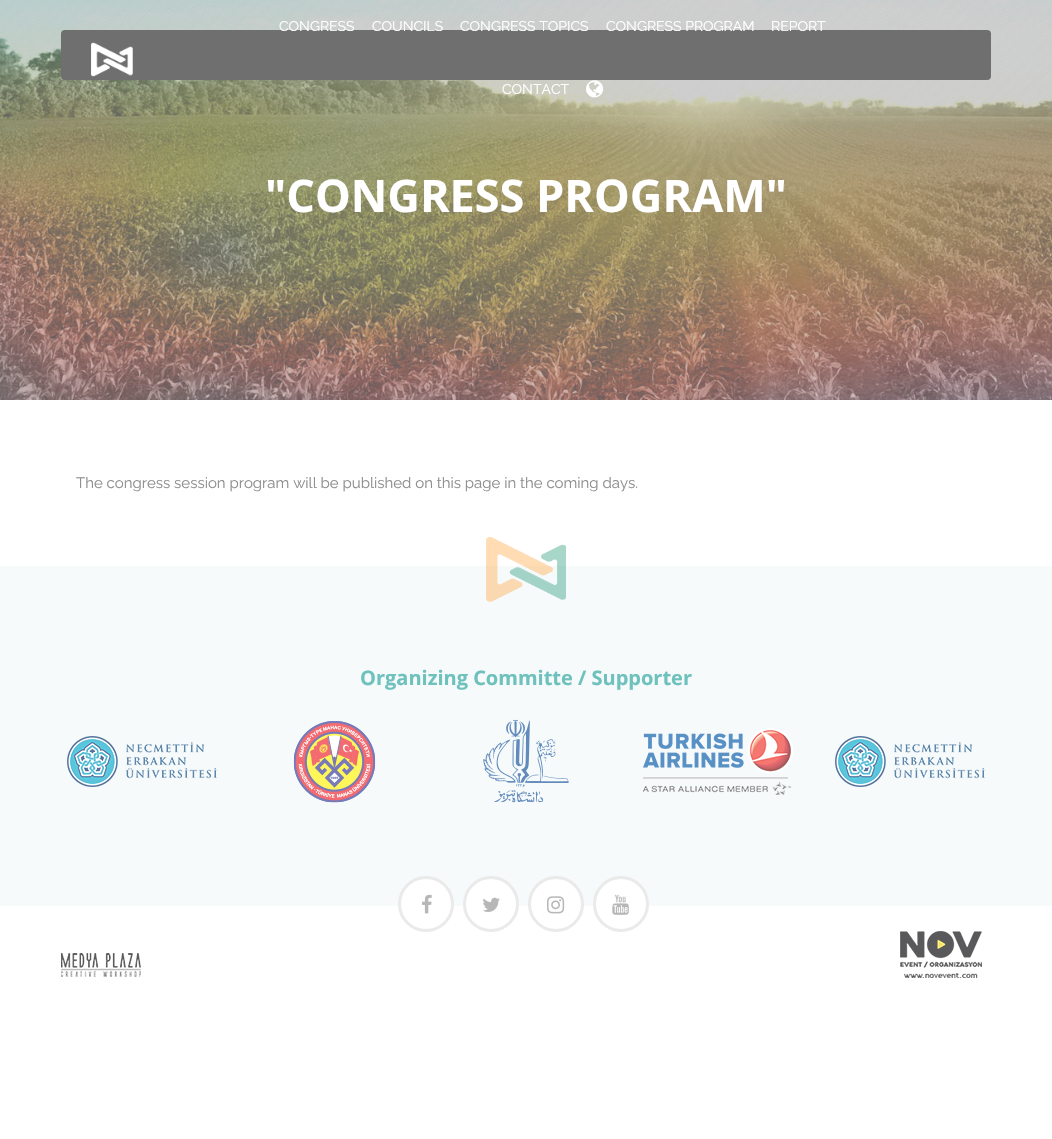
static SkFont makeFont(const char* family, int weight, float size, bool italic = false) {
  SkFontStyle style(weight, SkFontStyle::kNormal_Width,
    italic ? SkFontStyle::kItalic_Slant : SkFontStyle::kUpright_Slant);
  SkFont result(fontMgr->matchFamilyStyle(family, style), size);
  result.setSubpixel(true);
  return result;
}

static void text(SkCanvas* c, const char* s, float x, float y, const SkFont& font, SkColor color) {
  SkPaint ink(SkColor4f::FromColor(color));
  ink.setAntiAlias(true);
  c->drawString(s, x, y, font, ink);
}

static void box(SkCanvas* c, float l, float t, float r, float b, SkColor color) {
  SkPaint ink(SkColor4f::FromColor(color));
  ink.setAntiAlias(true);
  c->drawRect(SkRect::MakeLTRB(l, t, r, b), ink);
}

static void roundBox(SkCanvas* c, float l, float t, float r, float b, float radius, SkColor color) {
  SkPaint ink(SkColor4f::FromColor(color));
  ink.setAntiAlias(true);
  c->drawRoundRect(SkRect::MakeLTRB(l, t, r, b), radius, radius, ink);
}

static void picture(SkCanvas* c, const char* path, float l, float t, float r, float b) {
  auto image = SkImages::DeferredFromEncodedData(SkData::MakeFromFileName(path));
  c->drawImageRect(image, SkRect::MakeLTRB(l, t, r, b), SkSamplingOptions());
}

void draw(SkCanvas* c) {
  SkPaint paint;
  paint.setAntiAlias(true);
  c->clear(0xffffffff);
  picture(c, "img_03.png", 0, 0, 1052, 400);
  roundBox(c, 61, 30, 991, 80, 4, 0xff6f6f6f);
  picture(c, "img_01.png", 91, 42, 133, 77);
  SkFont face1 = makeFont("Raleway", 400, 14);
  text(c, "CONGRESS", 279, 31, face1, 0xffffffff);
  text(c, "COUNCILS", 372, 31, face1, 0xffffffff);
  text(c, "CONGRESS TOPICS", 460, 31, face1, 0xffffffff);
  text(c, "CONGRESS PROGRAM", 606, 31, face1, 0xffffffff);
  text(c, "REPORT", 771, 31, face1, 0xffffffff);
  text(c, "CONTACT", 502, 94, face1, 0xffffffff);
  picture(c, "img_02.png", 586, 80, 604, 98);
  SkFont face2 = makeFont("Open Sans", 700, 45);
  text(c, "\"CONGRESS PROGRAM\"", 265, 212, face2, 0xffffffff);
  SkFont face3 = makeFont("Raleway", 400, 15);
  text(c, "The congress session program will be published on this page in the coming days.", 76, 488, face3, 0xff8d8d8d);
  box(c, 0, 566, 1052, 906, 0xfff7fafb);
  picture(c, "img_04.png", 486, 537, 566, 602);
  SkFont face4 = makeFont("Open Sans", 700, 20);
  text(c, "Organizing Committe / Supporter", 360, 685, face4, 0xff6ec1bc);
  picture(c, "img_05.png", 67, 736, 217, 787);
  picture(c, "img_06.png", 293, 721, 376, 803);
  picture(c, "img_07.png", 483, 719, 569, 803);
  picture(c, "img_08.png", 643, 728, 793, 795);
  picture(c, "img_05.png", 835, 736, 985, 787);
  paint.setColor(0xffffffff);
  c->drawCircle(426, 904, 26.5f, paint);
  paint.setStyle(SkPaint::kStroke_Style);
  paint.setStrokeWidth(3);
  paint.setColor(0xffeaeaea);
  c->drawCircle(426, 904, 26.5f, paint);
  picture(c, "img_09.png", 422, 894, 432, 914);
  paint.setStyle(SkPaint::kFill_Style);
  paint.setColor(0xffffffff);
  c->drawCircle(491, 904, 26.5f, paint);
  paint.setStyle(SkPaint::kStroke_Style);
  paint.setColor(0xffeaeaea);
  c->drawCircle(491, 904, 26.5f, paint);
  picture(c, "img_10.png", 482, 897, 500, 912);
  paint.setStyle(SkPaint::kFill_Style);
  paint.setColor(0xffffffff);
  c->drawCircle(556, 904, 26.5f, paint);
  paint.setStyle(SkPaint::kStroke_Style);
  paint.setColor(0xffeaeaea);
  c->drawCircle(556, 904, 26.5f, paint);
  picture(c, "img_11.png", 547, 896, 565, 914);
  paint.setStyle(SkPaint::kFill_Style);
  paint.setColor(0xffffffff);
  c->drawCircle(621, 904, 26.5f, paint);
  paint.setStyle(SkPaint::kStroke_Style);
  paint.setColor(0xffeaeaea);
  c->drawCircle(621, 904, 26.5f, paint);
  picture(c, "img_12.png", 612, 894, 629, 915);
  picture(c, "img_13.png", 61, 953, 141, 977);
  picture(c, "img_14.png", 900, 931, 982, 978);
}
